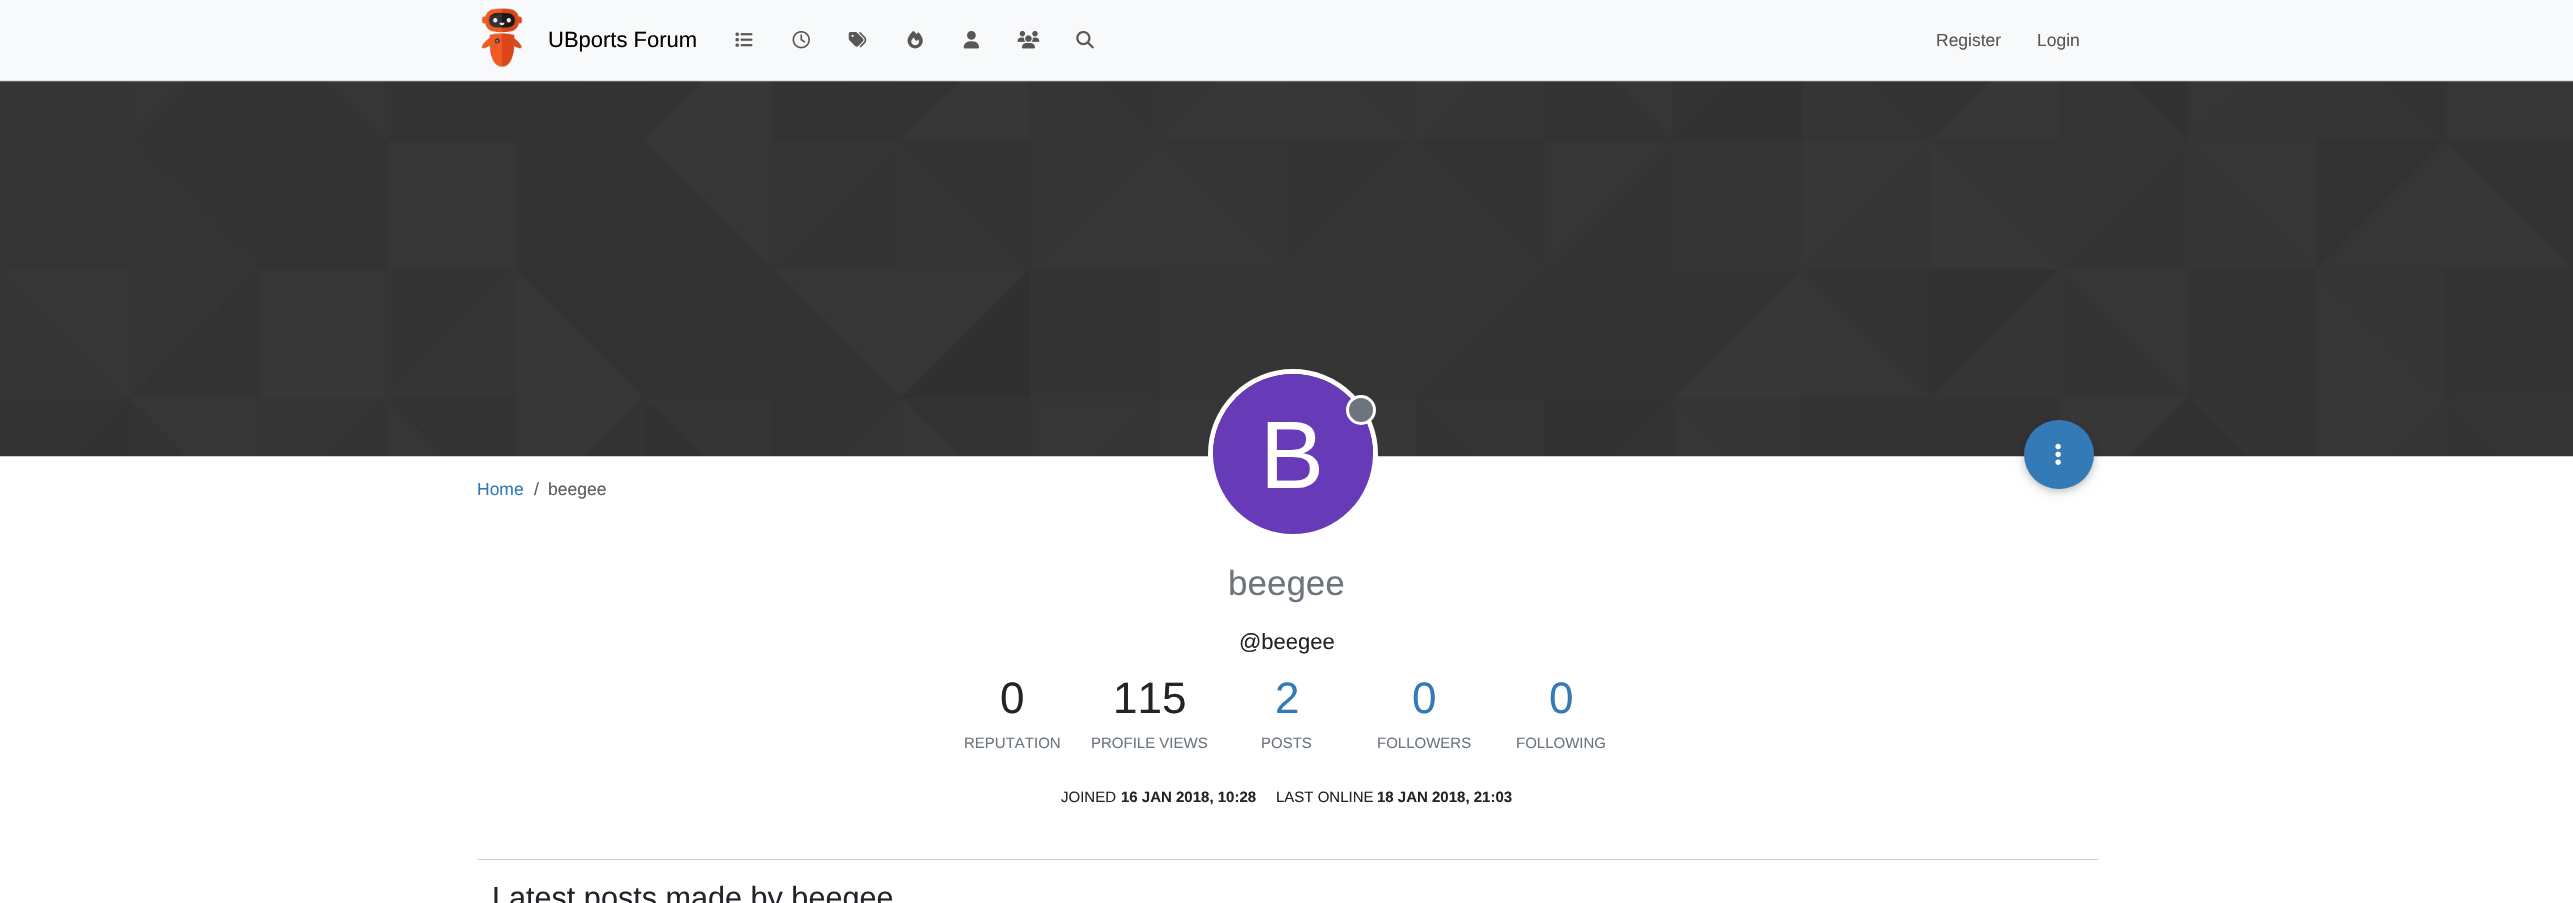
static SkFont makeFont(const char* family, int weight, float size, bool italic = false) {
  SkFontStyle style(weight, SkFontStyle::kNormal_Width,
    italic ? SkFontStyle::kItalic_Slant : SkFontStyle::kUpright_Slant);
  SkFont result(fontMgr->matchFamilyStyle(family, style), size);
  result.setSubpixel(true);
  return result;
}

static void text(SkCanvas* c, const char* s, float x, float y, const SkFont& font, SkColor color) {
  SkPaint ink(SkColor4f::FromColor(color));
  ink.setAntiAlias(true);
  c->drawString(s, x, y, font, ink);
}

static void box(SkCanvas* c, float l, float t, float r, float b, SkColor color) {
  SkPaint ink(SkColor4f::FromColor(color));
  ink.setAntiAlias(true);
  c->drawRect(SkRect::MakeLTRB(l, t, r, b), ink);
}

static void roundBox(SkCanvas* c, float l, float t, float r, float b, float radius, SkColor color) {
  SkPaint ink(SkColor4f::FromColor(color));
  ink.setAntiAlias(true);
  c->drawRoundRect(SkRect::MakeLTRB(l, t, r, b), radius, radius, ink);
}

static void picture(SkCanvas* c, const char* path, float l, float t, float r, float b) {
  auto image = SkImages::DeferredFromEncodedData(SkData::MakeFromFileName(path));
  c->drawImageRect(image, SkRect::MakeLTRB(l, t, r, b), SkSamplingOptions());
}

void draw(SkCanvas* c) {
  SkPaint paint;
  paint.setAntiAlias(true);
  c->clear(0xffffffff);
  box(c, 0, 0, 2573, 80, 0xfff8f9fa);
  box(c, 0, 80, 2573, 81, 0xffdee2e6);
  picture(c, "img_01.png", 481, 8, 523, 68);
  SkFont face1 = makeFont("Liberation Sans", 400, 22);
  text(c, "UBports Forum", 548, 47, face1, 0xff000000);
  picture(c, "img_02.png", 735, 32, 753, 47);
  picture(c, "img_03.png", 792, 31, 810, 49);
  picture(c, "img_04.png", 848, 32, 867, 48);
  picture(c, "img_05.png", 907, 31, 923, 49);
  picture(c, "img_06.png", 963, 31, 979, 49);
  picture(c, "img_07.png", 1017, 31, 1040, 49);
  picture(c, "img_08.png", 1076, 30, 1094, 49);
  SkFont face2 = makeFont("Liberation Sans", 400, 17.5f);
  text(c, "Register", 1936, 46, face2, 0xff575758);
  text(c, "Login", 2037, 46, face2, 0xff575758);
  picture(c, "img_09.png", 0, 81, 2573, 457);
  paint.setStyle(SkPaint::kStroke_Style);
  paint.setStrokeWidth(5);
  paint.setColor(0xffffffff);
  c->drawCircle(1293, 454, 82.5f, paint);
  paint.setStyle(SkPaint::kFill_Style);
  paint.setColor(0xff673ab7);
  c->drawCircle(1293, 454, 80, paint);
  paint.setColor(0xff6c757d);
  c->drawCircle(1361, 410, 13.5f, paint);
  paint.setStyle(SkPaint::kStroke_Style);
  paint.setStrokeWidth(3);
  paint.setColor(0xffffffff);
  c->drawCircle(1361, 410, 13.5f, paint);
  SkFont face3 = makeFont("Liberation Sans", 400, 96);
  text(c, "B", 1260, 488, face3, 0xffffffff);
  paint.setStyle(SkPaint::kFill_Style);
  paint.setColor(0x1f000000);
  paint.setMaskFilter(SkMaskFilter::MakeBlur(kNormal_SkBlurStyle, 6));
  c->drawRoundRect(SkRect::MakeLTRB(2024, 423, 2094, 491), 34, 34, paint);
  paint.setMaskFilter(nullptr);
  paint.setColor(0x29000000);
  paint.setMaskFilter(SkMaskFilter::MakeBlur(kNormal_SkBlurStyle, 3));
  c->drawRoundRect(SkRect::MakeLTRB(2024, 423, 2094, 491), 34, 34, paint);
  paint.setMaskFilter(nullptr);
  roundBox(c, 2024, 420, 2094, 489, 34.5f, 0xff337ab7);
  picture(c, "img_10.png", 2055, 443, 2061, 465);
  text(c, "Home", 477, 495, face2, 0xff337ab7);
  text(c, "/", 534, 495, face2, 0xff595c5f);
  text(c, "beegee", 548, 495, face2, 0xff595c5f);
  SkFont face4 = makeFont("Liberation Sans", 400, 35);
  text(c, "beegee", 1228, 595, face4, 0xff6c757d);
  text(c, "@beegee", 1239, 649, face1, 0xff212529);
  SkFont face5 = makeFont("Liberation Sans", 400, 44);
  text(c, "0", 1000, 713, face5, 0xff212529);
  SkFont face6 = makeFont("Liberation Sans", 400, 15);
  text(c, "REPUTATION", 964, 748, face6, 0xff6c757d);
  text(c, "115", 1113, 713, face5, 0xff212529);
  text(c, "PROFILE VIEWS", 1091, 748, face6, 0xff6c757d);
  text(c, "2", 1275, 713, face5, 0xff337ab7);
  text(c, "POSTS", 1261, 748, face6, 0xff6c757d);
  text(c, "0", 1412, 713, face5, 0xff337ab7);
  text(c, "FOLLOWERS", 1377, 748, face6, 0xff6c757d);
  text(c, "0", 1549, 713, face5, 0xff337ab7);
  text(c, "FOLLOWING", 1516, 748, face6, 0xff6c757d);
  text(c, "JOINED", 1061, 802, face6, 0xff212529);
  SkFont face7 = makeFont("Liberation Sans", 700, 15);
  text(c, "16 JAN 2018, 10:28", 1121, 802, face7, 0xff212529);
  text(c, "LAST ONLINE", 1276, 802, face6, 0xff212529);
  text(c, "18 JAN 2018, 21:03", 1377, 802, face7, 0xff212529);
  box(c, 478, 859, 2098, 860, 0xffc8c9ca);
  SkFont face8 = makeFont("Liberation Sans", 400, 30.6f);
  text(c, "Latest posts made by beegee", 492, 908, face8, 0xff212529);
}
